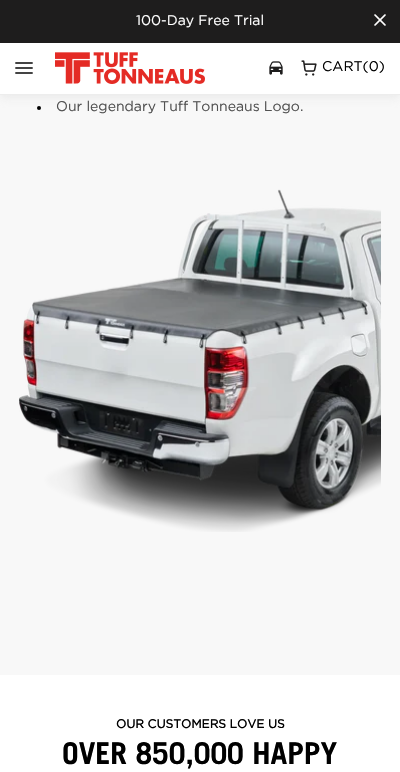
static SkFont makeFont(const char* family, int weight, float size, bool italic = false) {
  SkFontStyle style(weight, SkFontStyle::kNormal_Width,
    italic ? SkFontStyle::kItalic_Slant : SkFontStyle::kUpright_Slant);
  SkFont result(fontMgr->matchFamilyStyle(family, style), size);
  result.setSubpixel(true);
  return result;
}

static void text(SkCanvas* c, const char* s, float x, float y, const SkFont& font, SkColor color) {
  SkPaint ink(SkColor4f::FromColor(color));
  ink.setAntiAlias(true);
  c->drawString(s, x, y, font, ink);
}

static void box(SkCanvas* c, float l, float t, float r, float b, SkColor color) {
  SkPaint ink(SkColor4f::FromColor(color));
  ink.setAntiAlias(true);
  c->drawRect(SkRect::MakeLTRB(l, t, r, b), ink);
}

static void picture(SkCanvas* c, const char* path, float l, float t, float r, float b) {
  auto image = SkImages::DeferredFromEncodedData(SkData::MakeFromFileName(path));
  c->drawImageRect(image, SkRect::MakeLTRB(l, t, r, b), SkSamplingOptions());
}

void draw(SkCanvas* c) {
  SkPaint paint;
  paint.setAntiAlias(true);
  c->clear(0xffffffff);
  box(c, 0, 95, 400, 675, 0xfff8f8f8);
  paint.setColor(0xff000000);
  c->drawCircle(39, 108, 2, paint);
  paint.setColor(0x66d0d0d0);
  paint.setMaskFilter(SkMaskFilter::MakeBlur(kNormal_SkBlurStyle, 5));
  c->drawRect(SkRect::MakeLTRB(0, 2, 400, 97), paint);
  paint.setMaskFilter(nullptr);
  box(c, 0, 0, 400, 43, 0xff1e1d1d);
  SkFont face1 = makeFont("Gotham", 400, 14);
  text(c, "100-Day Free Trial", 136, 25, face1, 0xffffffff);
  picture(c, "img_01.png", 374, 14, 386, 26);
  box(c, 0, 43, 400, 94, 0xffffffff);
  box(c, 0, 94, 400, 95, 0xffededed);
  picture(c, "img_02.png", 15, 62, 33, 74);
  picture(c, "img_03.png", 55, 52, 205, 84);
  picture(c, "img_04.png", 269, 61, 283, 75);
  picture(c, "img_05.png", 301, 60, 317, 76);
  text(c, "CART(0)", 322, 71, face1, 0xff000000);
  text(c, "Our legendary Tuff Tonneaus Logo.", 56, 111, face1, 0xff515151);
  picture(c, "img_06.png", 19, 189, 381, 532);
  SkFont face2 = makeFont("Gotham", 700, 12);
  text(c, "OUR CUSTOMERS LOVE US", 116, 728, face2, 0xff000000);
  SkFont face3 = makeFont("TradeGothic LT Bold", 700, 30);
  text(c, "OVER 850,000 HAPPY", 62, 764, face3, 0xff000000);
}
